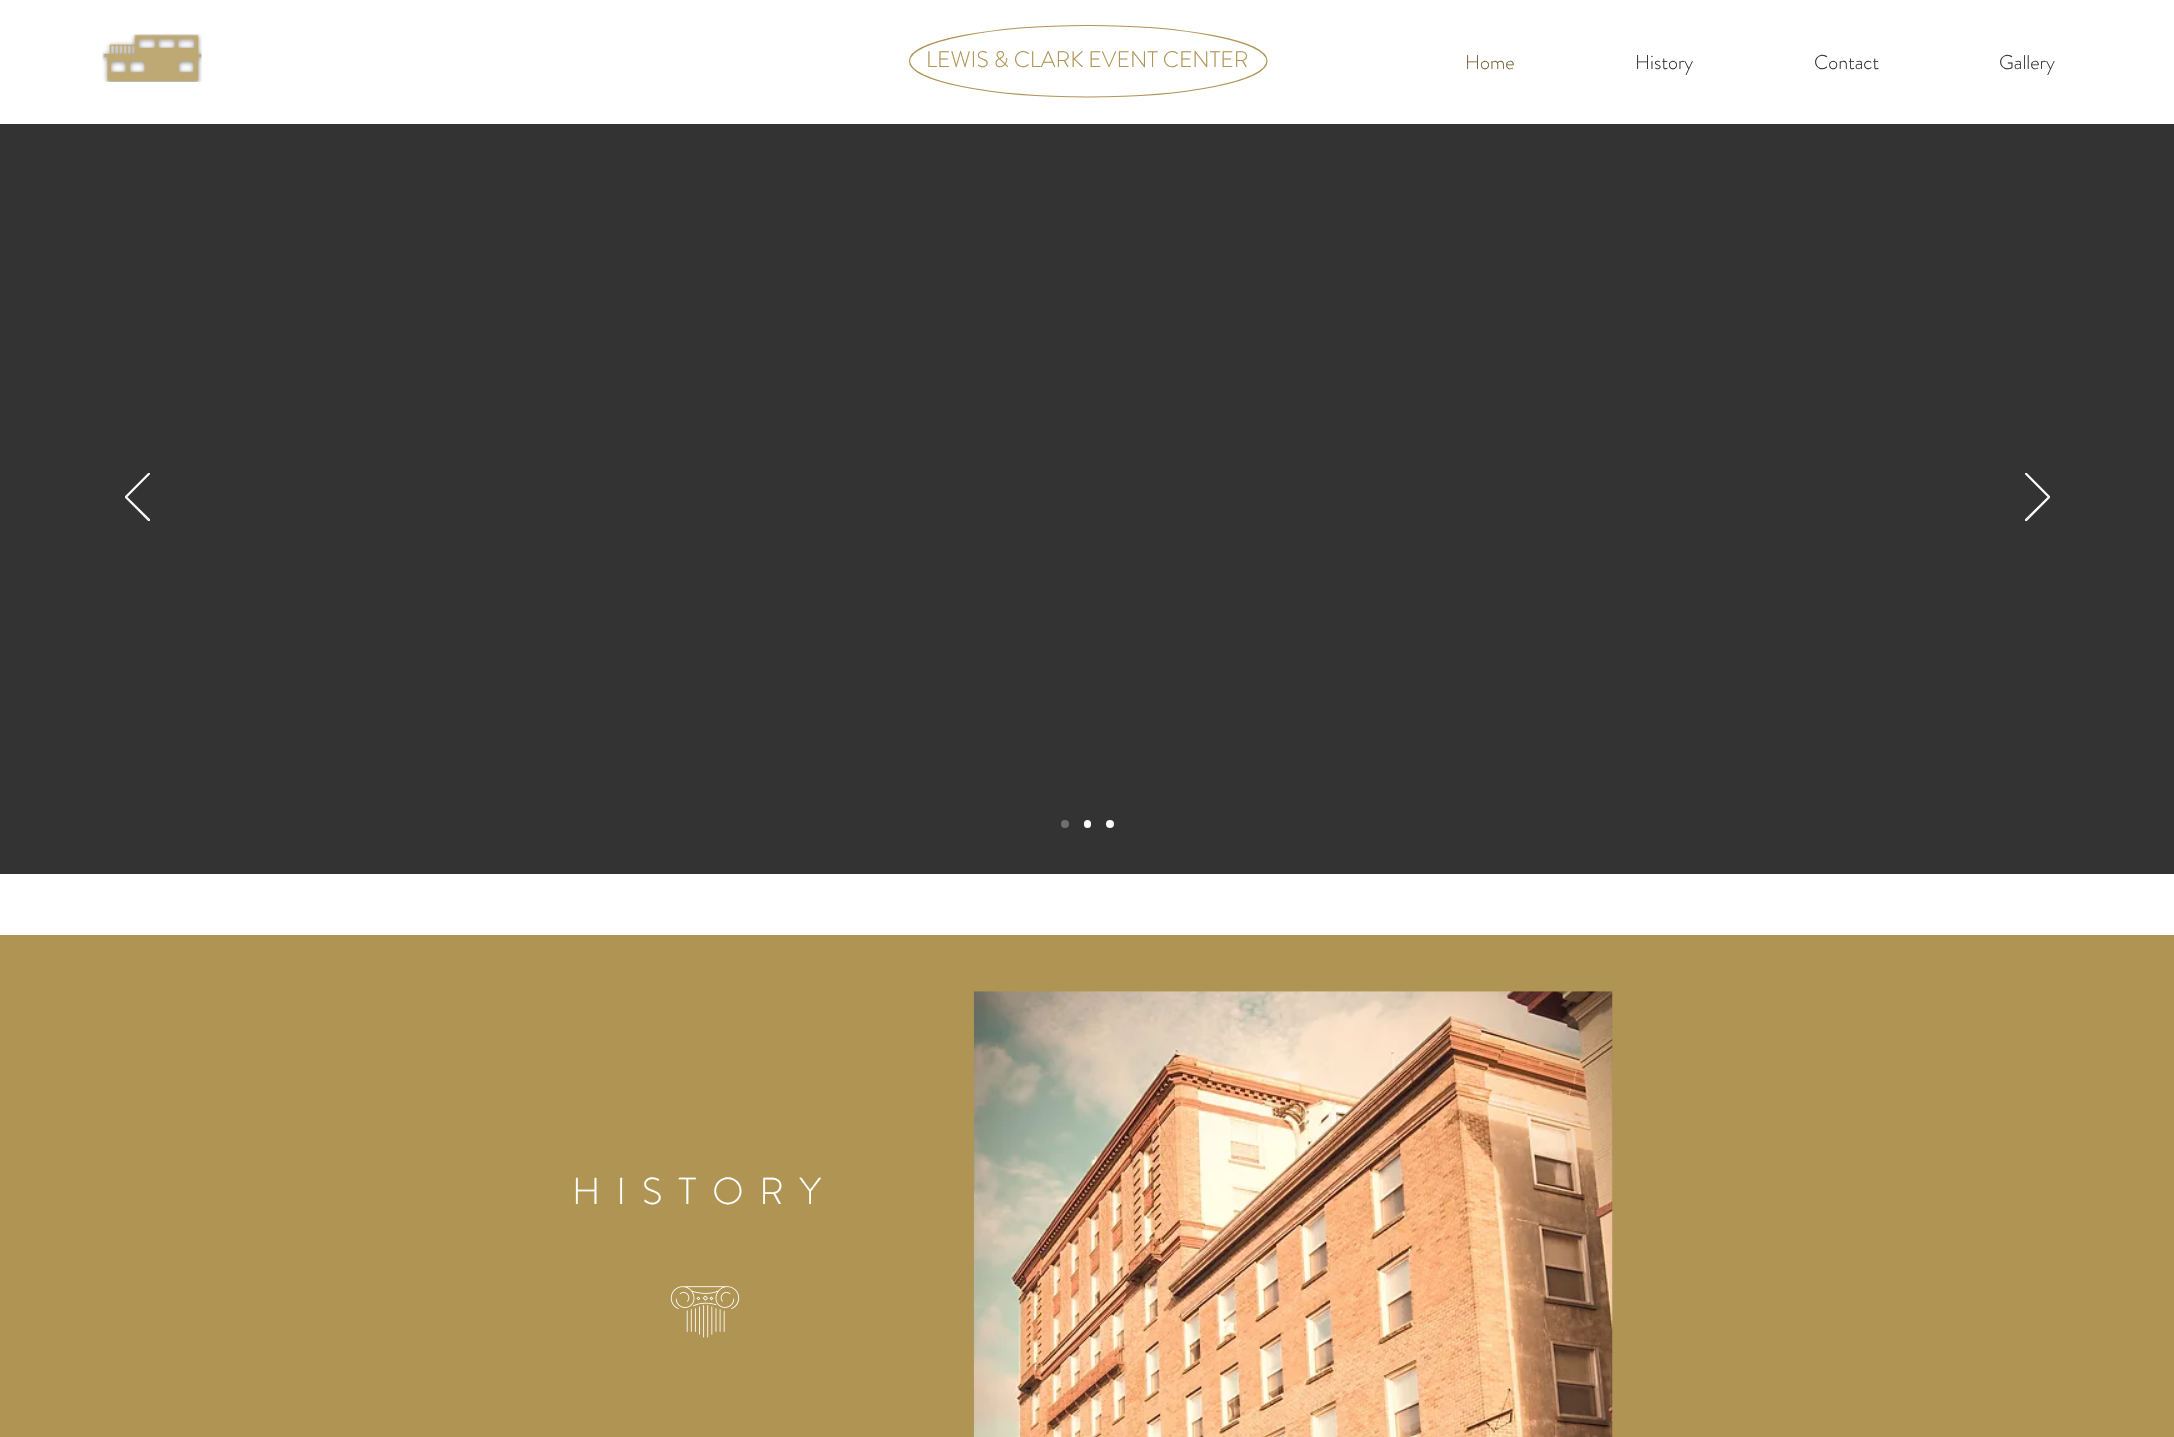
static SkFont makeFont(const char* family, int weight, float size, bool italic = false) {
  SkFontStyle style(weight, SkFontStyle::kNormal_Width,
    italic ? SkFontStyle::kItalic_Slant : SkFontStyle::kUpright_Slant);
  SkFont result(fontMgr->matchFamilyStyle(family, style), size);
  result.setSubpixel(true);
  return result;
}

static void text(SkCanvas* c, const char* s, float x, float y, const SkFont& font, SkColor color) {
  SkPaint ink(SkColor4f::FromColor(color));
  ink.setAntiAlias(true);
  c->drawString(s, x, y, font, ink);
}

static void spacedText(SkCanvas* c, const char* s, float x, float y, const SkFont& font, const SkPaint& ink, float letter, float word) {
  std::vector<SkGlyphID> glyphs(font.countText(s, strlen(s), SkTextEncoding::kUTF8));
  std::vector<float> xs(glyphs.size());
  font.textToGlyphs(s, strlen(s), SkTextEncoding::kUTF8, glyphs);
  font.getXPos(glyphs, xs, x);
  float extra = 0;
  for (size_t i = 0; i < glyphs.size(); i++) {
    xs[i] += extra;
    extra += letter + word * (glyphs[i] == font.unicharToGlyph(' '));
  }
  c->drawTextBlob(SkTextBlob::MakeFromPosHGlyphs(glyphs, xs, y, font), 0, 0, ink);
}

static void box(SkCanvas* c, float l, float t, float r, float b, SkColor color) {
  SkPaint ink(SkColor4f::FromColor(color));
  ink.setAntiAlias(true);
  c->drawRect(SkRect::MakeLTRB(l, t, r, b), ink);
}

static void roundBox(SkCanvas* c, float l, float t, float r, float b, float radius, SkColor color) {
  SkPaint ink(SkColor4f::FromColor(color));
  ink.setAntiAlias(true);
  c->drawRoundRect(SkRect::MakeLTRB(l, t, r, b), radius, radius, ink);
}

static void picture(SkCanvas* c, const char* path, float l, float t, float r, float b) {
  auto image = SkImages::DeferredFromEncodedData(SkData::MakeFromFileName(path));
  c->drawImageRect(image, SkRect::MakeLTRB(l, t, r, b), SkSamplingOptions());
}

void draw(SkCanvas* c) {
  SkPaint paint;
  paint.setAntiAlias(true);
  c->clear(0xffffffff);
  picture(c, "img_01.png", 102, 34, 202, 82);
  paint.setStyle(SkPaint::kStroke_Style);
  paint.setStrokeWidth(1.2f);
  paint.setColor(0xffaf9453);
  c->drawPath(SkPathBuilder().moveTo(1088, 25.5f).cubicTo(1187, 25.5f, 1267, 41.5f, 1267, 61).cubicTo(1267, 81, 1187, 97, 1088, 97).cubicTo(989.5f, 97, 909.5f, 81, 909.5f, 61).cubicTo(909.5f, 41.5f, 989.5f, 25.5f, 1088, 25.5f).close().detach(), paint);
  SkFont face1 = makeFont("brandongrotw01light", 300, 22.5f);
  text(c, "LEWIS & CLARK EVENT CENTER", 926, 67, face1, 0xffaf9453);
  SkFont face2 = makeFont("brandongrotw01light", 300, 20);
  text(c, "Home", 1465, 69, face2, 0xff756337);
  text(c, "History", 1635, 69, face2, 0xff333333);
  text(c, "Contact", 1814, 69, face2, 0xff333333);
  text(c, "Gallery", 1999, 69, face2, 0xff333333);
  box(c, 0, 124, 2174, 874, 0xff333333);
  c->save();
  c->clipRect(SkRect::MakeLTRB(125, 473, 150, 521));
  paint.setColor(0xfffbfbfb);
  c->drawPath(SkPathBuilder().moveTo(149, 521).lineTo(125, 497).lineTo(149, 473).lineTo(150, 473.5f).lineTo(126.5f, 497).lineTo(150, 520).close().detach(), paint);
  c->restore();
  c->save();
  c->clipRect(SkRect::MakeLTRB(2025, 473, 2050, 521));
  c->drawPath(SkPathBuilder().moveTo(2026, 521).lineTo(2050, 497).lineTo(2026, 473).lineTo(2025, 473.5f).lineTo(2048.5f, 497).lineTo(2025, 520).close().detach(), paint);
  c->restore();
  paint.setStyle(SkPaint::kFill_Style);
  paint.setColor(0xff707070);
  c->drawCircle(1065, 824, 4, paint);
  roundBox(c, 1084, 820, 1091, 828, 3.5f, 0xfffbfbfb);
  paint.setColor(0xfffbfbfb);
  c->drawCircle(1110, 824, 4, paint);
  box(c, 0, 935, 2174, 1437, 0xffaf9453);
  SkFont face3 = makeFont("brandongrotw01light", 300, 37.5f);
  paint.setColor(0xffffffff);
  spacedText(c, "HISTORY", 572, 1204, face3, paint, 16, 0);
  picture(c, "img_02.png", 973, 991, 1613, 1437);
  picture(c, "img_03.png", 670, 1286, 740, 1338);
}
